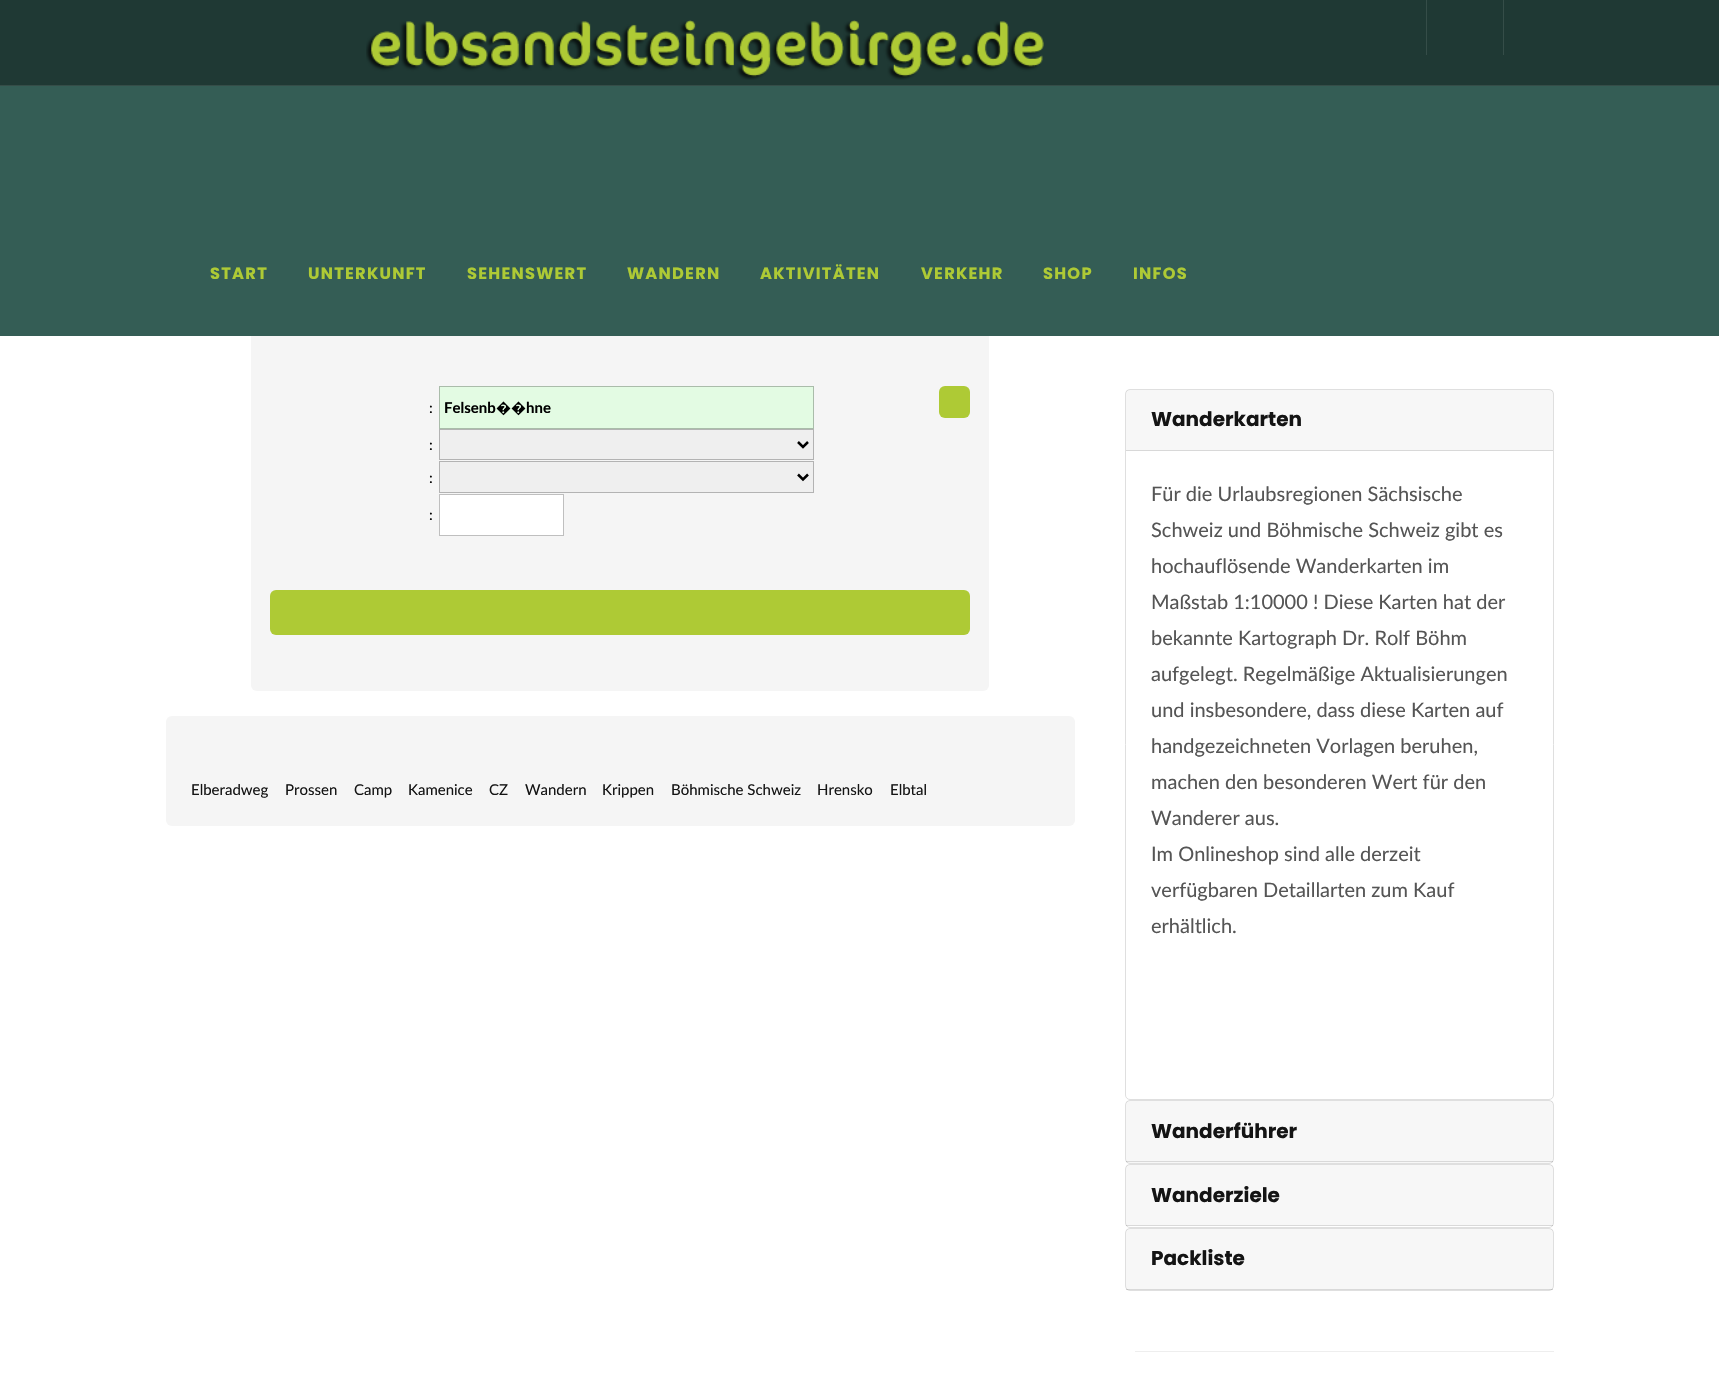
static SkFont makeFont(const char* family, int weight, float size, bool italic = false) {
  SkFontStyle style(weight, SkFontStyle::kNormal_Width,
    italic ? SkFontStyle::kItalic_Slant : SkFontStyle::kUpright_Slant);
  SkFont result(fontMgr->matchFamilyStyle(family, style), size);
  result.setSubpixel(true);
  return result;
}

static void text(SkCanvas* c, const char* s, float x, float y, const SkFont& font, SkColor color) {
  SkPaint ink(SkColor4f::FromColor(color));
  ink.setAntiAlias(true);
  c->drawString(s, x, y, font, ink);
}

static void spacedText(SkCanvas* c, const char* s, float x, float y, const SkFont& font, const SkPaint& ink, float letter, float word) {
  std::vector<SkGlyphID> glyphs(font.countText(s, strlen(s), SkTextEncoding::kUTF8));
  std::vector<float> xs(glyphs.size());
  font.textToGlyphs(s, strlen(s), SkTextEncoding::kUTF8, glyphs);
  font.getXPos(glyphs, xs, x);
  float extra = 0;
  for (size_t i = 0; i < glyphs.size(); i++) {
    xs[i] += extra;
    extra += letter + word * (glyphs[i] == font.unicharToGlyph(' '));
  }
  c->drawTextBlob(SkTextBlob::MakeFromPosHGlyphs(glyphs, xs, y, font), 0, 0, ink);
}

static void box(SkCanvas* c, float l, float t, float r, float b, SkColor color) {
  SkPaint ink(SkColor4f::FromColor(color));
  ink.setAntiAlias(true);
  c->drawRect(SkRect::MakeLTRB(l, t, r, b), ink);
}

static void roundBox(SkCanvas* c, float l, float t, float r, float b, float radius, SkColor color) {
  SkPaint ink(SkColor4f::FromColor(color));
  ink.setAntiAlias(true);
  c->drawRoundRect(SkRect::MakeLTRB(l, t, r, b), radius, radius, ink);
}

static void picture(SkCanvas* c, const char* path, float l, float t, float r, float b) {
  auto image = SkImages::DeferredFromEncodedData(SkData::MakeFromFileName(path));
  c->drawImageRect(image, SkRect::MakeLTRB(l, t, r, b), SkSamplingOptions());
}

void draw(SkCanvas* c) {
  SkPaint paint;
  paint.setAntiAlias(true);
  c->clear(0xffffffff);
  box(c, 0, 0, 1719, 85, 0xff1f3934);
  box(c, 0, 85, 1719, 86, 0xff354d48);
  picture(c, "img_01.png", 366, 20, 1044, 80);
  box(c, 1426, 0, 1427, 55, 0xff354d48);
  box(c, 1503, 0, 1504, 55, 0xff354d48);
  roundBox(c, 251, 330, 989, 691, 6, 0xfff5f5f5);
  box(c, 0, 86, 1719, 336, 0xff345d55);
  SkFont face1 = makeFont("Poppins", 700, 16.25f);
  paint.setColor(0xffaeca35);
  spacedText(c, "START", 210, 279, face1, paint, 1.25f, 0);
  spacedText(c, "UNTERKUNFT", 308, 279, face1, paint, 1.25f, 0);
  spacedText(c, "SEHENSWERT", 467, 279, face1, paint, 1.25f, 0);
  spacedText(c, "WANDERN", 627, 279, face1, paint, 1.25f, 0);
  spacedText(c, "AKTIVITÄTEN", 760, 279, face1, paint, 1.25f, 0);
  spacedText(c, "VERKEHR", 921, 279, face1, paint, 1.25f, 0);
  spacedText(c, "SHOP", 1043, 279, face1, paint, 1.25f, 0);
  spacedText(c, "INFOS", 1133, 279, face1, paint, 1.25f, 0);
  SkFont face2 = makeFont("Lato", 400, 15);
  text(c, ":", 429, 413, face2, 0xff000000);
  paint.setColor(0xffe3fbe3);
  c->drawRect(SkRect::MakeLTRB(439.5f, 386.5f, 813.5f, 428.5f), paint);
  paint.setStyle(SkPaint::kStroke_Style);
  paint.setStrokeWidth(1);
  paint.setColor(0xffaabcaa);
  c->drawRect(SkRect::MakeLTRB(439.5f, 386.5f, 813.5f, 428.5f), paint);
  SkFont face3 = makeFont("Lato", 700, 15);
  text(c, "Felsenb", 444, 413, face3, 0xff000000);
  SkFont face4 = makeFont("Noto Sans", 700, 15);
  text(c, "��", 496, 413, face4, 0xff000000);
  text(c, "hne", 526, 413, face3, 0xff000000);
  roundBox(c, 939, 386, 970, 418, 6, 0xffaeca35);
  text(c, ":", 429, 450, face2, 0xff000000);
  paint.setStyle(SkPaint::kFill_Style);
  paint.setColor(0xffefefef);
  c->drawRect(SkRect::MakeLTRB(439.5f, 429.5f, 813.5f, 459.5f), paint);
  paint.setStyle(SkPaint::kStroke_Style);
  paint.setColor(0xffb3b3b3);
  c->drawRect(SkRect::MakeLTRB(439.5f, 429.5f, 813.5f, 459.5f), paint);
  paint.setStrokeWidth(2.5f);
  paint.setColor(0xff000000);
  c->drawPath(SkPathBuilder().moveTo(798, 442).lineTo(803, 447).lineTo(808, 442).detach(), paint);
  text(c, ":", 429, 483, face2, 0xff000000);
  paint.setStyle(SkPaint::kFill_Style);
  paint.setColor(0xffefefef);
  c->drawRect(SkRect::MakeLTRB(439.5f, 461.5f, 813.5f, 492.5f), paint);
  paint.setStyle(SkPaint::kStroke_Style);
  paint.setStrokeWidth(1);
  paint.setColor(0xffb3b3b3);
  c->drawRect(SkRect::MakeLTRB(439.5f, 461.5f, 813.5f, 492.5f), paint);
  paint.setStrokeWidth(2.5f);
  paint.setColor(0xff000000);
  c->drawPath(SkPathBuilder().moveTo(798, 474.5f).lineTo(803, 479.5f).lineTo(808, 474.5f).detach(), paint);
  text(c, ":", 429, 520, face2, 0xff000000);
  paint.setStyle(SkPaint::kFill_Style);
  paint.setColor(0xffffffff);
  c->drawRect(SkRect::MakeLTRB(439.5f, 494.5f, 563.5f, 535.5f), paint);
  paint.setStyle(SkPaint::kStroke_Style);
  paint.setStrokeWidth(1);
  paint.setColor(0xffbfbfbf);
  c->drawRect(SkRect::MakeLTRB(439.5f, 494.5f, 563.5f, 535.5f), paint);
  roundBox(c, 270, 590, 970, 635, 6, 0xffaeca35);
  roundBox(c, 166, 716, 1075, 826, 6, 0xfff5f5f5);
  text(c, "Elberadweg", 191, 795, face2, 0xff141414);
  text(c, "Prossen", 285, 795, face2, 0xff141414);
  text(c, "Camp", 354, 795, face2, 0xff141414);
  text(c, "Kamenice", 408, 795, face2, 0xff141414);
  text(c, "CZ", 489, 795, face2, 0xff141414);
  text(c, "Wandern", 525, 795, face2, 0xff141414);
  text(c, "Krippen", 602, 795, face2, 0xff141414);
  text(c, "Böhmische Schweiz", 671, 795, face2, 0xff141414);
  text(c, "Hrensko", 817, 795, face2, 0xff141414);
  text(c, "Elbtal", 890, 795, face2, 0xff141414);
  paint.setColor(0xffdfdfdf);
  c->drawRoundRect(SkRect::MakeLTRB(1125.5f, 389.5f, 1553.5f, 1099.5f), 4.5f, 4.5f, paint);
  box(c, 1126, 390, 1553, 450, 0x08000000);
  box(c, 1126, 450, 1553, 451, 0xffd8d8d8);
  SkFont face5 = makeFont("Poppins", 700, 20);
  text(c, "Wanderkarten", 1151, 426, face5, 0xff141414);
  SkFont face6 = makeFont("Lato", 400, 20);
  text(c, "Für die Urlaubsregionen Sächsische", 1151, 501, face6, 0xff555555);
  text(c, "Schweiz und Böhmische Schweiz gibt es", 1151, 537, face6, 0xff555555);
  text(c, "hochauflösende Wanderkarten im", 1151, 573, face6, 0xff555555);
  text(c, "Maßstab 1:10000 ! Diese Karten hat der", 1151, 609, face6, 0xff555555);
  text(c, "bekannte Kartograph Dr. Rolf Böhm", 1151, 645, face6, 0xff555555);
  text(c, "aufgelegt. Regelmäßige Aktualisierungen", 1151, 681, face6, 0xff555555);
  text(c, "und insbesondere, dass diese Karten auf", 1151, 717, face6, 0xff555555);
  text(c, "handgezeichneten Vorlagen beruhen,", 1151, 753, face6, 0xff555555);
  text(c, "machen den besonderen Wert für den", 1151, 789, face6, 0xff555555);
  text(c, "Wanderer aus.", 1151, 825, face6, 0xff555555);
  text(c, "Im Onlineshop sind alle derzeit", 1151, 861, face6, 0xff555555);
  text(c, "verfügbaren Detaillarten zum Kauf", 1151, 897, face6, 0xff555555);
  text(c, "erhältlich.", 1151, 933, face6, 0xff555555);
  c->drawRoundRect(SkRect::MakeLTRB(1125.5f, 1100.5f, 1553.5f, 1163.5f), 4.5f, 4.5f, paint);
  box(c, 1126, 1101, 1553, 1163, 0x08000000);
  box(c, 1126, 1161, 1553, 1162, 0x1f000000);
  text(c, "Wanderführer", 1151, 1138, face5, 0xff141414);
  c->drawRoundRect(SkRect::MakeLTRB(1125.5f, 1164.5f, 1553.5f, 1227.5f), 4.5f, 4.5f, paint);
  box(c, 1126, 1165, 1553, 1226, 0x08000000);
  box(c, 1126, 1225, 1553, 1226, 0x1f000000);
  text(c, "Wanderziele", 1151, 1202, face5, 0xff141414);
  c->drawRoundRect(SkRect::MakeLTRB(1125.5f, 1228.5f, 1553.5f, 1290.5f), 4.5f, 4.5f, paint);
  box(c, 1126, 1229, 1553, 1290, 0x08000000);
  box(c, 1126, 1289, 1553, 1290, 0x1f000000);
  text(c, "Packliste", 1151, 1265, face5, 0xff141414);
  box(c, 1135, 1351, 1554, 1352, 0xffeeeeee);
}
